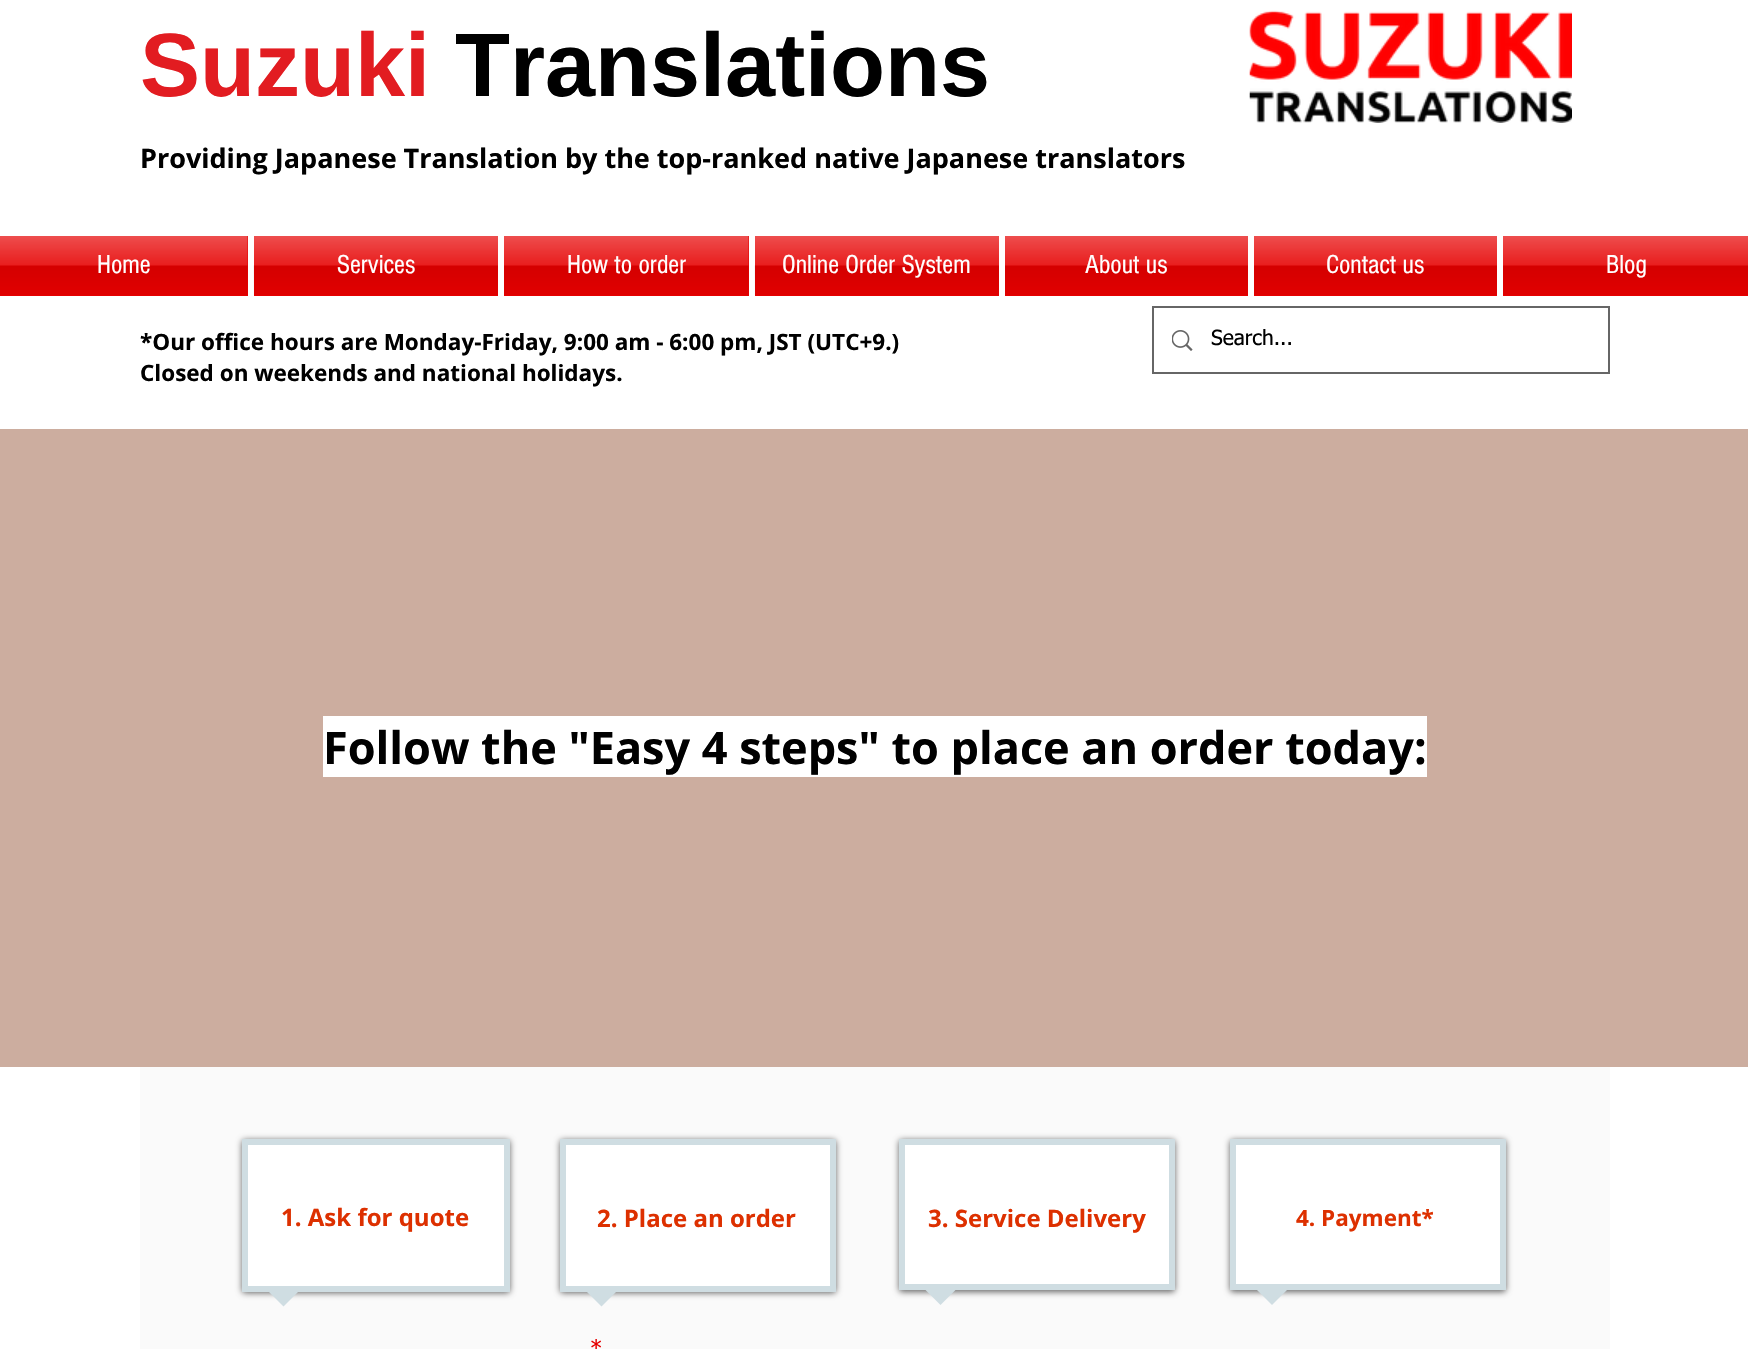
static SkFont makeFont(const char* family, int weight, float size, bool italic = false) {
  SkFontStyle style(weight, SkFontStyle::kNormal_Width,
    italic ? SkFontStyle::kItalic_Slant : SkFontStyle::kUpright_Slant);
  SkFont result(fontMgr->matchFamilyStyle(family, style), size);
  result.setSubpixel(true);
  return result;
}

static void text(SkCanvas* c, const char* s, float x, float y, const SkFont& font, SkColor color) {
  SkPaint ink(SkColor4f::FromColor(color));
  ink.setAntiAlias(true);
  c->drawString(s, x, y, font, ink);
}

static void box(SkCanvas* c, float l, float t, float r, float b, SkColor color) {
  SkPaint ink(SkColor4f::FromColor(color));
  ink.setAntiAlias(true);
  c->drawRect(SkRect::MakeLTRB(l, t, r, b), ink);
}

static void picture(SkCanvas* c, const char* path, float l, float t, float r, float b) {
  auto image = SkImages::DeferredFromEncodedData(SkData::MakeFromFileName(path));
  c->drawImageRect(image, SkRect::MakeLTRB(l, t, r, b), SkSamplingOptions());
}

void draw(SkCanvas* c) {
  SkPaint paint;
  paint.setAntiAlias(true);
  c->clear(0xffffffff);
  SkFont face1 = makeFont("Liberation Sans", 700, 90);
  text(c, "Suzuki", 140, 96, face1, 0xffe21c21);
  text(c, "Translations", 455, 96, face1, 0xff000000);
  picture(c, "img_01.png", 1249, 10, 1572, 123);
  SkFont face2 = makeFont("Open Sans", 700, 27);
  text(c, "Providing Japanese Translation by the top-ranked native Japanese translators", 140, 168, face2, 0xff000000);
  box(c, 0, 236, 248, 296, 0xffe60000);
  picture(c, "img_02.png", 0, 236, 248, 295);
  SkFont face3 = makeFont("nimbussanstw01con", 400, 27);
  text(c, "Home", 97, 273, face3, 0xffffffff);
  box(c, 254, 236, 498, 296, 0xffe60000);
  picture(c, "img_03.png", 253, 236, 498, 295);
  text(c, "Services", 337, 273, face3, 0xffffffff);
  box(c, 504, 236, 749, 296, 0xffe60000);
  picture(c, "img_04.png", 504, 236, 749, 295);
  text(c, "How to order", 567, 273, face3, 0xffffffff);
  box(c, 755, 236, 999, 296, 0xffe60000);
  picture(c, "img_03.png", 754, 236, 999, 295);
  text(c, "Online Order System", 782, 273, face3, 0xffffffff);
  box(c, 1005, 236, 1248, 296, 0xffe60000);
  picture(c, "img_05.png", 1005, 236, 1248, 295);
  text(c, "About us", 1085, 273, face3, 0xffffffff);
  box(c, 1254, 236, 1497, 296, 0xffe60000);
  picture(c, "img_05.png", 1254, 236, 1497, 295);
  text(c, "Contact us", 1326, 273, face3, 0xffffffff);
  box(c, 1503, 236, 1748, 296, 0xffe60000);
  picture(c, "img_06.png", 1503, 236, 1748, 295);
  text(c, "Blog", 1606, 273, face3, 0xffffffff);
  SkFont face4 = makeFont("Open Sans", 700, 22.5f);
  text(c, "*Our office hours are Monday-Friday, 9:00 am - 6:00 pm, JST (UTC+9.)", 140, 350, face4, 0xff000000);
  text(c, "Closed on weekends and national holidays.", 140, 381, face4, 0xff000000);
  paint.setStyle(SkPaint::kStroke_Style);
  paint.setStrokeWidth(2);
  paint.setColor(0xff666666);
  c->drawRect(SkRect::MakeLTRB(1153, 307, 1609, 373), paint);
  picture(c, "img_07.png", 1172, 330, 1193, 351);
  SkFont face5 = makeFont("tahoma", 400, 21);
  text(c, "Search...", 1211, 345, face5, 0xff000000);
  box(c, 0, 429, 1748, 1067, 0xffccad9f);
  box(c, 323, 716, 1427, 777, 0xffffffff);
  SkFont face6 = makeFont("Open Sans", 700, 45);
  text(c, "Follow the \"Easy 4 steps\" to place an order today:", 323, 764, face6, 0xff000000);
  box(c, 140, 1067, 1610, 1349, 0xfffafafa);
  paint.setStyle(SkPaint::kFill_Style);
  paint.setColor(0x99000000);
  paint.setMaskFilter(SkMaskFilter::MakeBlur(kNormal_SkBlurStyle, 3));
  c->drawRoundRect(SkRect::MakeLTRB(242, 1140, 510, 1293), 3, 3, paint);
  paint.setMaskFilter(nullptr);
  paint.setColor(0xffffffff);
  c->drawRect(SkRect::MakeLTRB(245, 1142, 507, 1289), paint);
  paint.setStyle(SkPaint::kStroke_Style);
  paint.setStrokeWidth(6);
  paint.setColor(0xffcfdde2);
  c->drawRect(SkRect::MakeLTRB(245, 1142, 507, 1289), paint);
  SkFont face7 = makeFont("Open Sans", 700, 24);
  text(c, "1. Ask for quote", 281, 1226, face7, 0xffdd3000);
  paint.setStyle(SkPaint::kFill_Style);
  c->drawPath(SkPathBuilder().moveTo(268.5f, 1291.5f).lineTo(298.5f, 1291.5f).lineTo(283.5f, 1306.5f).close().detach(), paint);
  paint.setColor(0x99000000);
  paint.setMaskFilter(SkMaskFilter::MakeBlur(kNormal_SkBlurStyle, 3));
  c->drawRoundRect(SkRect::MakeLTRB(560, 1140, 836, 1293), 3, 3, paint);
  paint.setMaskFilter(nullptr);
  paint.setColor(0xffffffff);
  c->drawRect(SkRect::MakeLTRB(563, 1142, 833, 1289), paint);
  paint.setStyle(SkPaint::kStroke_Style);
  paint.setColor(0xffcfdde2);
  c->drawRect(SkRect::MakeLTRB(563, 1142, 833, 1289), paint);
  text(c, "2. Place an order", 597, 1227, face7, 0xffdd3000);
  paint.setStyle(SkPaint::kFill_Style);
  c->drawPath(SkPathBuilder().moveTo(586.5f, 1291.5f).lineTo(616.5f, 1291.5f).lineTo(601.5f, 1306.5f).close().detach(), paint);
  paint.setColor(0x99000000);
  paint.setMaskFilter(SkMaskFilter::MakeBlur(kNormal_SkBlurStyle, 3));
  c->drawRoundRect(SkRect::MakeLTRB(899, 1140, 1175, 1292), 3, 3, paint);
  paint.setMaskFilter(nullptr);
  paint.setColor(0xffffffff);
  c->drawRect(SkRect::MakeLTRB(902, 1142, 1172, 1287), paint);
  paint.setStyle(SkPaint::kStroke_Style);
  paint.setColor(0xffcfdde2);
  c->drawRect(SkRect::MakeLTRB(902, 1142, 1172, 1287), paint);
  text(c, "3. Service Delivery", 928, 1227, face7, 0xffdd3000);
  paint.setStyle(SkPaint::kFill_Style);
  c->drawPath(SkPathBuilder().moveTo(925.5f, 1290).lineTo(955.5f, 1290).lineTo(940.5f, 1305).close().detach(), paint);
  paint.setColor(0x99000000);
  paint.setMaskFilter(SkMaskFilter::MakeBlur(kNormal_SkBlurStyle, 3));
  c->drawRoundRect(SkRect::MakeLTRB(1230, 1140, 1506, 1292), 3, 3, paint);
  paint.setMaskFilter(nullptr);
  paint.setColor(0xffffffff);
  c->drawRect(SkRect::MakeLTRB(1233, 1142, 1503, 1287), paint);
  paint.setStyle(SkPaint::kStroke_Style);
  paint.setColor(0xffcfdde2);
  c->drawRect(SkRect::MakeLTRB(1233, 1142, 1503, 1287), paint);
  text(c, "4. Payment*", 1296, 1226, face4, 0xffdd3000);
  paint.setStyle(SkPaint::kFill_Style);
  c->drawPath(SkPathBuilder().moveTo(1257, 1290).lineTo(1287, 1290).lineTo(1272, 1305).close().detach(), paint);
  SkFont face8 = makeFont("tahoma", 400, 22.5f);
  text(c, "*", 590, 1356, face8, 0xffe60000);
}
